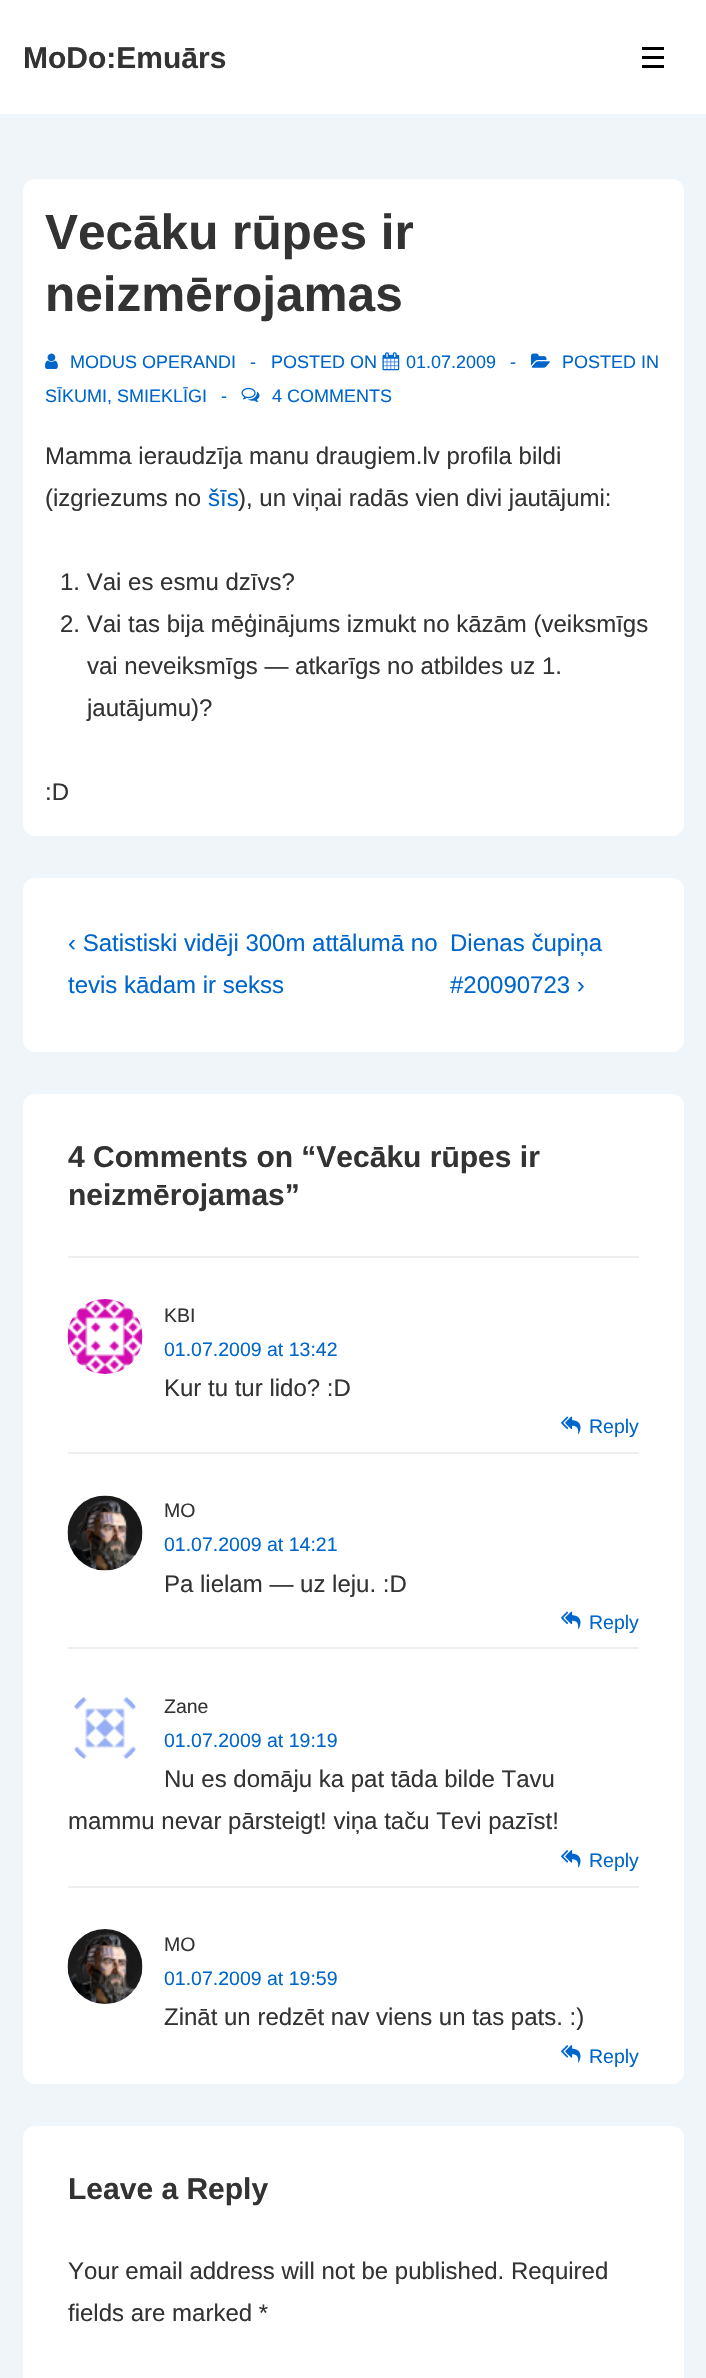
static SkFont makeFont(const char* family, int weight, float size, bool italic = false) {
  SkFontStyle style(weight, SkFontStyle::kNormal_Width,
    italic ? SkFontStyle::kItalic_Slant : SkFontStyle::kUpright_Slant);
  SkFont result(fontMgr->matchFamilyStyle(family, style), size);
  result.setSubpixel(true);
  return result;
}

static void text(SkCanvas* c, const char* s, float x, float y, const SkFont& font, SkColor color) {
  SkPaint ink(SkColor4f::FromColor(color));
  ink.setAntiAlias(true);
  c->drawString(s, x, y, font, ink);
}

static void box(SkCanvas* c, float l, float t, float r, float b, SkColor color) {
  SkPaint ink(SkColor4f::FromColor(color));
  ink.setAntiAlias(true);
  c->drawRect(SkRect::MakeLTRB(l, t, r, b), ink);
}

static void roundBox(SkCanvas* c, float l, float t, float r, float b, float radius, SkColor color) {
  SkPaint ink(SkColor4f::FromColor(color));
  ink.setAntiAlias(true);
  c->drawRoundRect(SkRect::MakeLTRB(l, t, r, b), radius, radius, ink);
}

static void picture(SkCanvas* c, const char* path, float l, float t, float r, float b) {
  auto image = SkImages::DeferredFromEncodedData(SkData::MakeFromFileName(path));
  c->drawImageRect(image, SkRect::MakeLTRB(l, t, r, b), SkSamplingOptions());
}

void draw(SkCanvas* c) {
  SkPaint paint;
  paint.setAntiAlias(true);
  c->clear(0xfff0f5fa);
  box(c, 0, 0, 706, 114, 0xffffffff);
  SkFont face1 = makeFont("Liberation Sans", 700, 30);
  text(c, "MoDo:Emuārs", 23, 68, face1, 0xff333333);
  box(c, 642, 47, 664, 50, 0xff000000);
  box(c, 642, 56, 664, 59, 0xff000000);
  box(c, 642, 65, 664, 68, 0xff000000);
  roundBox(c, 23, 179, 684, 836, 12, 0xffffffff);
  SkFont face2 = makeFont("Liberation Sans", 700, 49.5f);
  text(c, "Vecāku rūpes ir", 45, 249, face2, 0xff333333);
  text(c, "neizmērojamas", 45, 311, face2, 0xff333333);
  picture(c, "img_01.png", 45, 353, 58, 369);
  SkFont face3 = makeFont("Liberation Sans", 400, 18);
  text(c, "MODUS OPERANDI", 70, 368, face3, 0xff0066cc);
  text(c, "-", 250, 368, face3, 0xff0066cc);
  text(c, "POSTED ON", 271, 368, face3, 0xff0066cc);
  picture(c, "img_02.png", 382, 352, 400, 371);
  text(c, "01.07.2009", 406, 368, face3, 0xff0066cc);
  text(c, "-", 510, 368, face3, 0xff0066cc);
  picture(c, "img_03.png", 531, 353, 550, 368);
  text(c, "POSTED IN", 562, 368, face3, 0xff0066cc);
  text(c, "SĪKUMI, SMIEKLĪGI", 45, 402, face3, 0xff0066cc);
  text(c, "-", 221, 402, face3, 0xff0066cc);
  picture(c, "img_04.png", 241, 387, 260, 402);
  text(c, "4 COMMENTS", 272, 402, face3, 0xff0066cc);
  SkFont face4 = makeFont("Liberation Sans", 400, 24);
  text(c, "Mamma ieraudzīja manu draugiem.lv profila bildi", 45, 464, face4, 0xff333333);
  text(c, "(izgriezums no", 45, 506, face4, 0xff333333);
  text(c, "šīs", 208, 506, face4, 0xff0066cc);
  text(c, "), un viņai radās vien divi jautājumi:", 238, 506, face4, 0xff333333);
  text(c, "1. Vai es esmu dzīvs?", 60, 590, face4, 0xff333333);
  text(c, "2. Vai tas bija mēģinājums izmukt no kāzām (veiksmīgs", 60, 632, face4, 0xff333333);
  text(c, "vai neveiksmīgs — atkarīgs no atbildes uz 1.", 87, 674, face4, 0xff333333);
  text(c, "jautājumu)?", 87, 716, face4, 0xff333333);
  text(c, ":D", 45, 800, face4, 0xff333333);
  roundBox(c, 23, 878, 684, 1052, 12, 0xffffffff);
  text(c, "‹ Satistiski vidēji 300m attālumā no", 68, 951, face4, 0xff0066cc);
  text(c, "tevis kādam ir sekss", 68, 993, face4, 0xff0066cc);
  text(c, "Dienas čupiņa", 450, 951, face4, 0xff0066cc);
  text(c, "#20090723 ›", 450, 993, face4, 0xff0066cc);
  roundBox(c, 23, 1094, 684, 2084, 12, 0xffffffff);
  text(c, "4 Comments on “Vecāku rūpes ir", 68, 1167, face1, 0xff333333);
  text(c, "neizmērojamas”", 68, 1205, face1, 0xff333333);
  box(c, 68, 1256, 639, 1258, 0xffeeeeee);
  picture(c, "img_05.png", 67, 1299, 143, 1374);
  SkFont face5 = makeFont("Liberation Sans", 400, 19.5f);
  text(c, "KBI", 164, 1322, face5, 0xff333333);
  text(c, "01.07.2009 at 13:42", 164, 1356, face5, 0xff0066cc);
  text(c, "Kur tu tur lido? :D", 164, 1396, face4, 0xff333333);
  picture(c, "img_06.png", 561, 1416, 581, 1434);
  text(c, "Reply", 589, 1433, face5, 0xff0066cc);
  box(c, 68, 1452, 639, 1454, 0xffeeeeee);
  picture(c, "img_07.png", 67, 1495, 143, 1571);
  text(c, "MO", 164, 1517, face5, 0xff333333);
  text(c, "01.07.2009 at 14:21", 164, 1551, face5, 0xff0066cc);
  text(c, "Pa lielam — uz leju. :D", 164, 1592, face4, 0xff333333);
  picture(c, "img_06.png", 561, 1611, 581, 1629);
  text(c, "Reply", 589, 1629, face5, 0xff0066cc);
  box(c, 68, 1647, 639, 1649, 0xffeeeeee);
  picture(c, "img_08.png", 74, 1696, 136, 1759);
  text(c, "Zane", 164, 1713, face5, 0xff333333);
  text(c, "01.07.2009 at 19:19", 164, 1747, face5, 0xff0066cc);
  text(c, "Nu es domāju ka pat tāda bilde Tavu", 164, 1787, face4, 0xff333333);
  text(c, "mammu nevar pārsteigt! viņa taču Tevi pazīst!", 68, 1829, face4, 0xff333333);
  picture(c, "img_09.png", 561, 1850, 581, 1868);
  text(c, "Reply", 589, 1867, face5, 0xff0066cc);
  box(c, 68, 1886, 639, 1888, 0xffeeeeee);
  picture(c, "img_10.png", 67, 1929, 143, 2004);
  text(c, "MO", 164, 1951, face5, 0xff333333);
  text(c, "01.07.2009 at 19:59", 164, 1985, face5, 0xff0066cc);
  text(c, "Zināt un redzēt nav viens un tas pats. :)", 164, 2025, face4, 0xff333333);
  picture(c, "img_09.png", 561, 2045, 581, 2063);
  text(c, "Reply", 589, 2063, face5, 0xff0066cc);
  roundBox(c, 23, 2126, 684, 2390, 12, 0xffffffff);
  text(c, "Leave a Reply", 68, 2199, face1, 0xff333333);
  text(c, "Your email address will not be published. Required", 68, 2279, face4, 0xff333333);
  text(c, "fields are marked *", 68, 2321, face4, 0xff333333);
}
